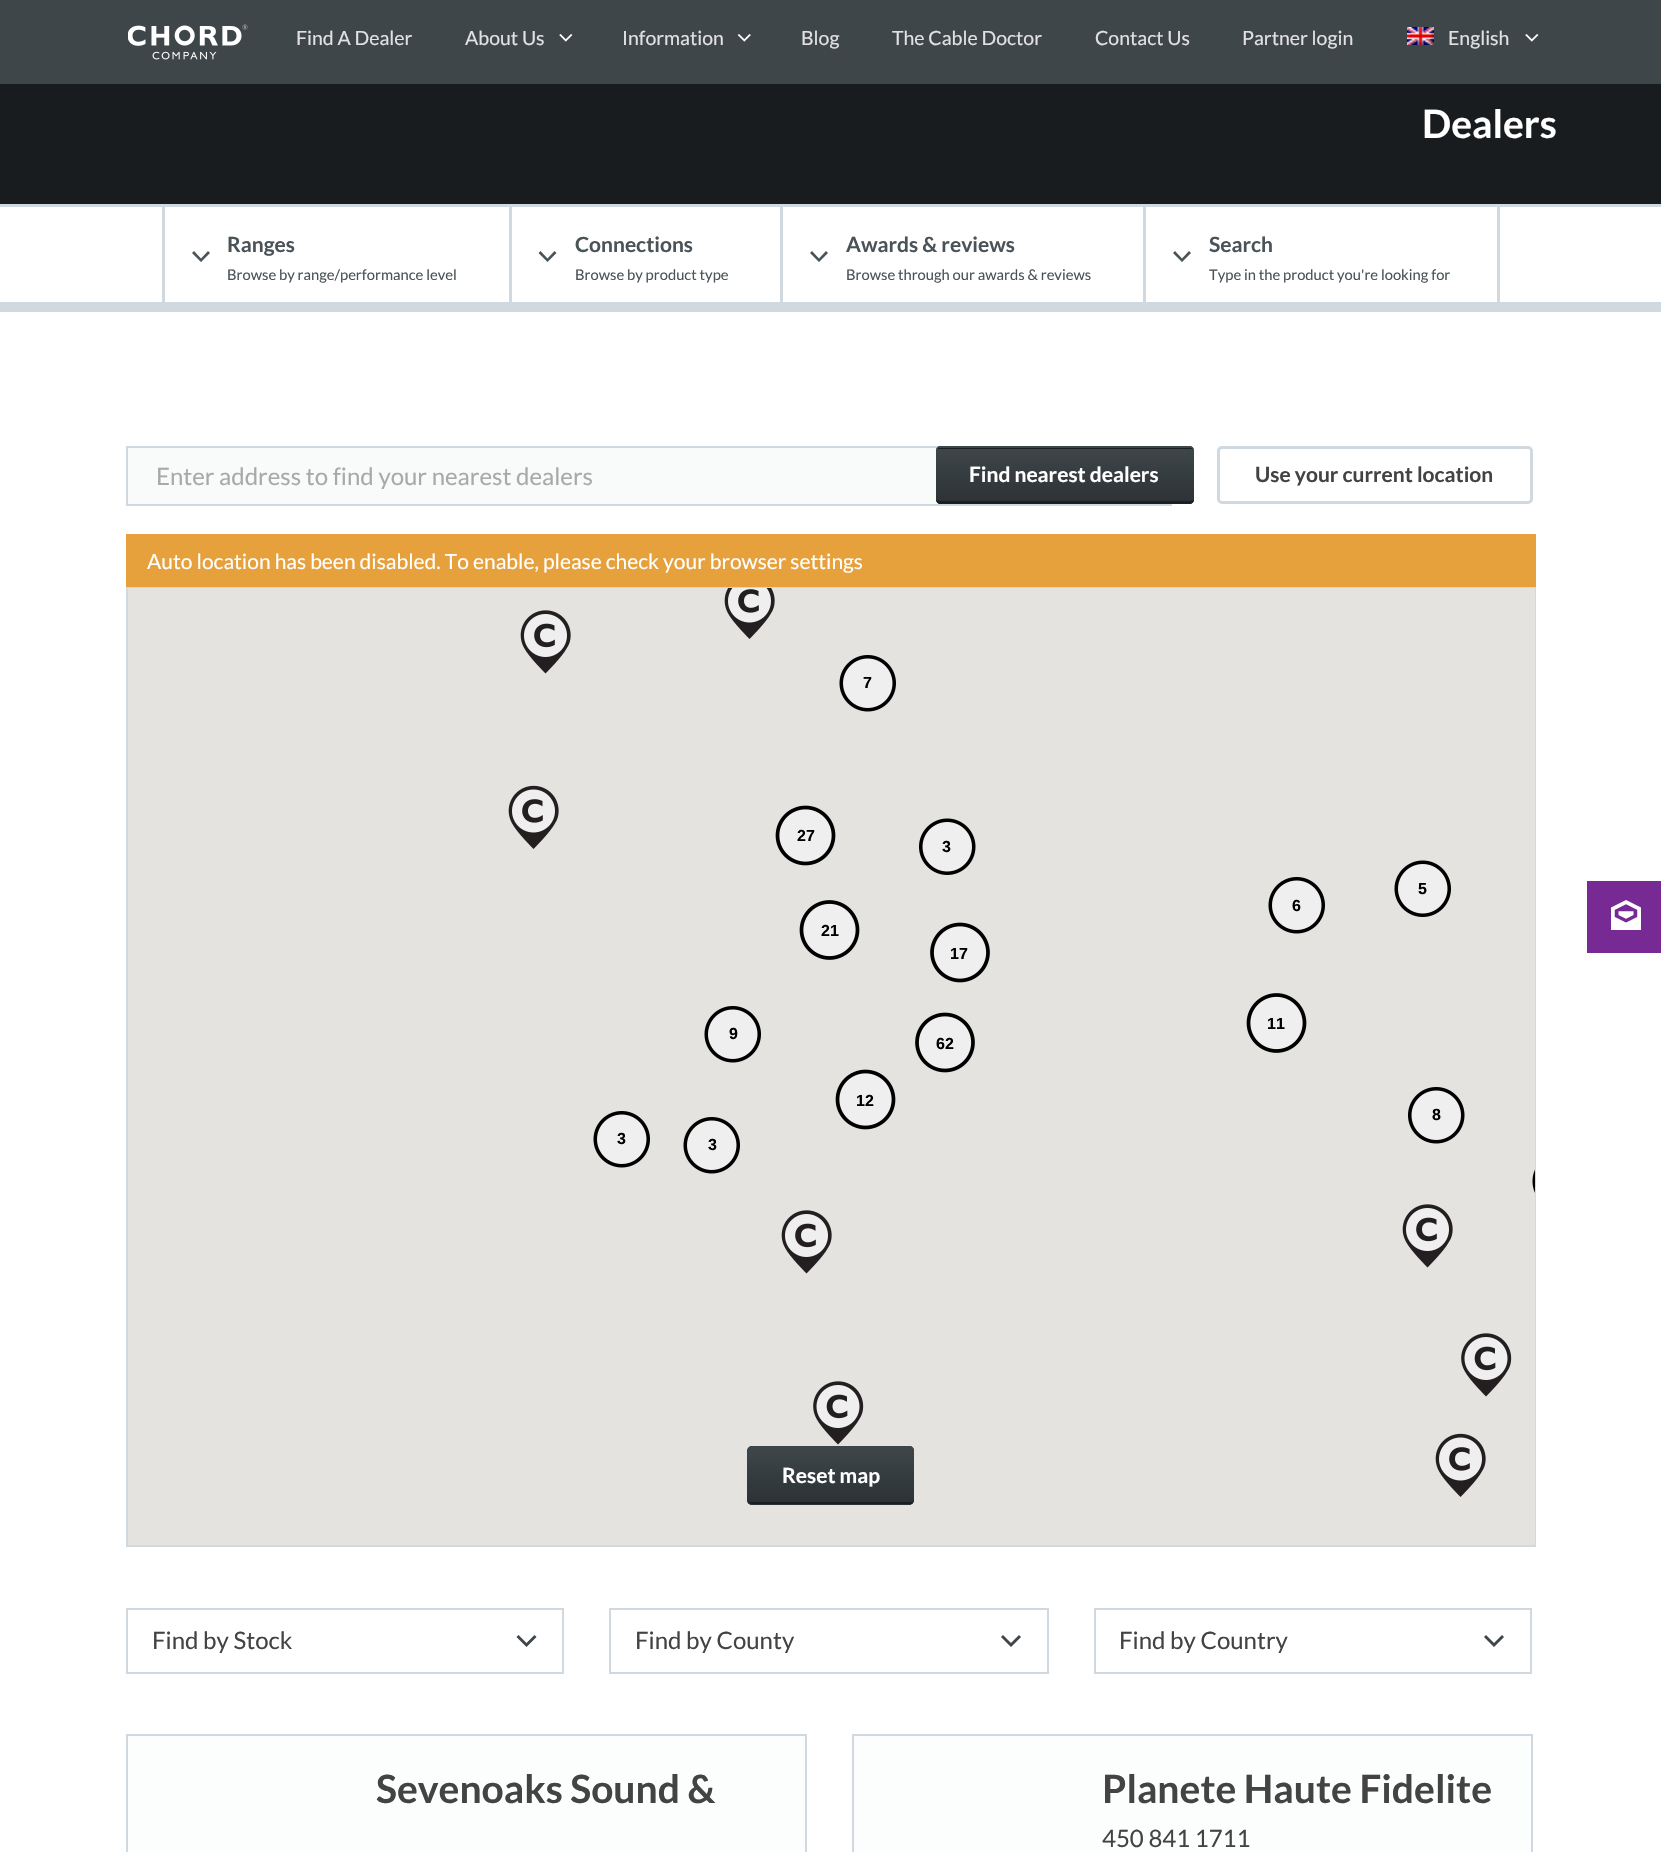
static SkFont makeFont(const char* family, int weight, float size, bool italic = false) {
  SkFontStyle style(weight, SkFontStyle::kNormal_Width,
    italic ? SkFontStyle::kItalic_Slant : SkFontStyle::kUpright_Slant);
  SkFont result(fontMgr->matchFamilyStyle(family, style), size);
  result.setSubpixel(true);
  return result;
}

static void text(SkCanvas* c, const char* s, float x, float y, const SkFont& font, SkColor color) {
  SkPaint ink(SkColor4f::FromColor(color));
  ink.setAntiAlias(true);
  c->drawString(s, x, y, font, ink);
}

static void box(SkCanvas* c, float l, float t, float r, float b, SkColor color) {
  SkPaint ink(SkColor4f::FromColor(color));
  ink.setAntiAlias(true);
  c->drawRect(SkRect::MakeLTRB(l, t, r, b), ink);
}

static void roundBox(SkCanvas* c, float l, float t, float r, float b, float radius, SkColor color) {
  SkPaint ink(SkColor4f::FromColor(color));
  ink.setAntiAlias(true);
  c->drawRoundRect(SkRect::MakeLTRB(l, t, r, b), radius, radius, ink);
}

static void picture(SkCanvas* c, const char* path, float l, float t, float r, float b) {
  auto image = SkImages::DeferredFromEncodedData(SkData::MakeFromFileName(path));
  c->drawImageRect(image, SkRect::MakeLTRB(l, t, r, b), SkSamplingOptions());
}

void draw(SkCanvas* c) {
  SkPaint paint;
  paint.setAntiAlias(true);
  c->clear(0xffffffff);
  box(c, 0, 0, 1661, 84, 0xff3e464a);
  picture(c, "img_01.png", 128, 24, 248, 60);
  SkFont face1 = makeFont("Lato", 400, 19.5f);
  text(c, "Find A Dealer", 296, 45, face1, 0xffe1e1e1);
  text(c, "About Us", 465, 45, face1, 0xffe1e1e1);
  picture(c, "img_02.png", 559, 34, 573, 42);
  text(c, "Information", 622, 45, face1, 0xffe1e1e1);
  picture(c, "img_03.png", 737, 34, 751, 42);
  text(c, "Blog", 801, 45, face1, 0xffe1e1e1);
  text(c, "The Cable Doctor", 892, 45, face1, 0xffe1e1e1);
  text(c, "Contact Us", 1095, 45, face1, 0xffe1e1e1);
  text(c, "Partner login", 1242, 45, face1, 0xffe1e1e1);
  picture(c, "img_04.png", 1407, 27, 1434, 45);
  text(c, "English", 1448, 45, face1, 0xffe1e1e1);
  picture(c, "img_02.png", 1525, 34, 1539, 42);
  box(c, 0, 84, 1661, 204, 0xff191c1e);
  SkFont face2 = makeFont("Lato", 700, 39);
  text(c, "Dealers", 1422, 138, face2, 0xffffffff);
  box(c, 0, 302, 1661, 312, 0xffd1d9e0);
  box(c, 0, 204, 1661, 207, 0xffd1d9e0);
  box(c, 162, 204, 165, 302, 0xffd1d9e0);
  paint.setColor(0xff4a5458);
  c->drawPath(SkPathBuilder().moveTo(210, 253).lineTo(208, 251).lineTo(201, 258.5f).lineTo(194, 251).lineTo(192, 253).lineTo(201, 262).close().detach(), paint);
  SkFont face3 = makeFont("Lato", 700, 21);
  text(c, "Ranges", 227, 252, face3, 0xff4a5458);
  SkFont face4 = makeFont("Lato", 400, 14.75f);
  text(c, "Browse by range/performance level", 227, 280, face4, 0xff4a5458);
  box(c, 509, 204, 512, 302, 0xffd1d9e0);
  text(c, "Connections", 575, 252, face3, 0xff4a5458);
  c->drawPath(SkPathBuilder().moveTo(556.5f, 253).lineTo(554.5f, 251).lineTo(547.5f, 258.5f).lineTo(540.5f, 251).lineTo(538.5f, 253).lineTo(547.5f, 262).close().detach(), paint);
  text(c, "Browse by product type", 575, 280, face4, 0xff4a5458);
  box(c, 780, 204, 783, 302, 0xffd1d9e0);
  text(c, "Awards & reviews", 846, 252, face3, 0xff4a5458);
  c->drawPath(SkPathBuilder().moveTo(828, 253).lineTo(826, 251).lineTo(819, 258.5f).lineTo(812, 251).lineTo(810, 253).lineTo(819, 262).close().detach(), paint);
  text(c, "Browse through our awards & reviews", 846, 280, face4, 0xff4a5458);
  box(c, 1497, 204, 1500, 302, 0xffd1d9e0);
  box(c, 1143, 204, 1146, 302, 0xffd1d9e0);
  text(c, "Search", 1209, 252, face3, 0xff4a5458);
  c->drawPath(SkPathBuilder().moveTo(1191, 253).lineTo(1189, 251).lineTo(1182, 258.5f).lineTo(1175, 251).lineTo(1173, 253).lineTo(1182, 262).close().detach(), paint);
  text(c, "Type in the product you're looking for", 1209, 280, face4, 0xff4a5458);
  box(c, 128, 448, 940, 504, 0xfff9fbfb);
  paint.setStyle(SkPaint::kStroke_Style);
  paint.setStrokeWidth(2);
  paint.setColor(0xffd1d9e0);
  c->drawRect(SkRect::MakeLTRB(127, 447, 1171, 505), paint);
  SkFont face5 = makeFont("Lato", 400, 24);
  text(c, "Enter address to find your nearest dealers", 156, 485, face5, 0xffa9a9a9);
  roundBox(c, 936, 446, 1194, 504, 5, 0xff1b1f21);
  c->save();
  c->clipPath(SkPathBuilder().moveTo(941, 446).lineTo(1189, 446).cubicTo(1192, 446, 1194, 448, 1194, 451).lineTo(1194, 499).cubicTo(1194, 502, 1192, 504, 1189, 504).lineTo(941, 504).cubicTo(938, 504, 936, 502, 936, 499).lineTo(936, 451).cubicTo(936, 448, 938, 446, 941, 446).close().detach(), true);
  paint.setStyle(SkPaint::kFill_Style);
  {
    const SkColor colors[] = {0xff1b1f21, 0xff3e464a};
    const float stops[] = {0, 1};
    const SkPoint ends[] = {{937, 554}, {937, 449}};
    paint.setShader(SkGradientShader::MakeLinear(ends, colors, stops, 2, SkTileMode::kClamp));
    paint.setAlpha(255);
  }
  c->drawPath(SkPathBuilder().moveTo(936, 449).lineTo(1194, 449).lineTo(1194, 499).cubicTo(1194, 502, 1192, 504, 1189, 504).lineTo(941, 504).cubicTo(938, 504, 936, 502, 936, 499).close().detach(), paint);
  c->restore();
  paint.setShader(nullptr);
  paint.setColor(0xff3e464a);
  c->drawPath(SkPathBuilder().moveTo(940, 446).cubicTo(938, 446, 936, 448, 936, 450).cubicTo(936, 449, 938, 448, 940, 448).lineTo(1190, 448).cubicTo(1192, 448, 1194, 449, 1194, 450).cubicTo(1194, 448, 1192, 446, 1190, 446).close().detach(), paint);
  paint.setColor(0xff1b1f21);
  c->drawPath(SkPathBuilder().moveTo(1190, 504).cubicTo(1192, 504, 1194, 502, 1194, 500).lineTo(1190, 501).lineTo(940, 501).lineTo(936, 500).cubicTo(936, 502, 938, 504, 940, 504).close().detach(), paint);
  text(c, "Find nearest dealers", 969, 482, face3, 0xffffffff);
  paint.setStyle(SkPaint::kStroke_Style);
  paint.setStrokeWidth(3);
  paint.setColor(0xffd1d9e0);
  c->drawRoundRect(SkRect::MakeLTRB(1218.5f, 447.5f, 1531.5f, 502.5f), 3.5f, 3.5f, paint);
  text(c, "Use your current location", 1255, 482, face3, 0xff434343);
  box(c, 126, 534, 1536, 587, 0xffe6a03c);
  SkFont face6 = makeFont("Lato", 400, 21);
  text(c, "Auto location has been disabled. To enable, please check your browser settings", 147, 569, face6, 0xffffffff);
  paint.setStrokeWidth(2);
  c->drawRect(SkRect::MakeLTRB(127, 588, 1535, 1546), paint);
  box(c, 128, 588, 1535, 1545, 0xffe5e3df);
  picture(c, "img_05.png", 520, 610, 571, 674);
  picture(c, "img_06.png", 724, 588, 775, 639);
  picture(c, "img_07.png", 508, 785, 559, 849);
  picture(c, "img_05.png", 781, 1210, 832, 1274);
  picture(c, "img_05.png", 1402, 1204, 1453, 1268);
  picture(c, "img_08.png", 1461, 1333, 1512, 1397);
  picture(c, "img_08.png", 813, 1381, 864, 1445);
  picture(c, "img_07.png", 1435, 1433, 1486, 1497);
  picture(c, "img_09.png", 839, 655, 896, 712);
  SkFont face7 = makeFont("Liberation Sans", 700, 16);
  text(c, "7", 863, 688, face7, 0xff000000);
  picture(c, "img_10.png", 775, 805, 836, 866);
  text(c, "27", 797, 841, face7, 0xff000000);
  picture(c, "img_11.png", 919, 818, 976, 875);
  text(c, "3", 942, 852, face7, 0xff000000);
  picture(c, "img_12.png", 1394, 860, 1451, 917);
  text(c, "5", 1418, 894, face7, 0xff000000);
  picture(c, "img_09.png", 1268, 877, 1325, 934);
  text(c, "6", 1292, 911, face7, 0xff000000);
  picture(c, "img_13.png", 799, 900, 860, 960);
  text(c, "21", 821, 936, face7, 0xff000000);
  picture(c, "img_14.png", 930, 922, 990, 983);
  text(c, "17", 950, 959, face7, 0xff000000);
  picture(c, "img_13.png", 1246, 993, 1307, 1053);
  text(c, "11", 1267, 1029, face7, 0xff000000);
  picture(c, "img_09.png", 704, 1006, 761, 1063);
  text(c, "9", 729, 1039, face7, 0xff000000);
  picture(c, "img_14.png", 915, 1012, 975, 1073);
  text(c, "62", 936, 1049, face7, 0xff000000);
  picture(c, "img_10.png", 835, 1069, 896, 1130);
  text(c, "12", 856, 1106, face7, 0xff000000);
  picture(c, "img_15.png", 1408, 1087, 1465, 1144);
  text(c, "8", 1432, 1120, face7, 0xff000000);
  picture(c, "img_09.png", 593, 1111, 650, 1168);
  text(c, "3", 617, 1144, face7, 0xff000000);
  picture(c, "img_09.png", 683, 1117, 740, 1174);
  text(c, "3", 708, 1150, face7, 0xff000000);
  picture(c, "img_16.png", 1532, 1169, 1535, 1193);
  roundBox(c, 747, 1446, 914, 1505, 5, 0xff1b1f21);
  c->save();
  c->clipPath(SkPathBuilder().moveTo(752, 1446).lineTo(909, 1446).cubicTo(912, 1446, 914, 1448, 914, 1451).lineTo(914, 1500).cubicTo(914, 1503, 912, 1505, 909, 1505).lineTo(752, 1505).cubicTo(749, 1505, 747, 1503, 747, 1500).lineTo(747, 1451).cubicTo(747, 1448, 749, 1446, 752, 1446).close().detach(), true);
  paint.setStyle(SkPaint::kFill_Style);
  {
    const SkColor colors[] = {0xff1b1f21, 0xff3e464a};
    const float stops[] = {0, 1};
    const SkPoint ends[] = {{748, 1554}, {748, 1449}};
    paint.setShader(SkGradientShader::MakeLinear(ends, colors, stops, 2, SkTileMode::kClamp));
    paint.setAlpha(255);
  }
  c->drawPath(SkPathBuilder().moveTo(747, 1449).lineTo(914, 1449).lineTo(914, 1500).cubicTo(914, 1503, 912, 1505, 909, 1505).lineTo(752, 1505).cubicTo(749, 1505, 747, 1503, 747, 1500).close().detach(), paint);
  c->restore();
  paint.setShader(nullptr);
  paint.setColor(0xff3e464a);
  c->drawPath(SkPathBuilder().moveTo(752, 1446).cubicTo(750, 1446, 748, 1448, 748, 1450).lineTo(752, 1449).lineTo(911, 1449).lineTo(914, 1450).cubicTo(914, 1448, 912, 1446, 910, 1446).close().detach(), paint);
  paint.setColor(0xff1b1f21);
  c->drawPath(SkPathBuilder().moveTo(910, 1504).cubicTo(912, 1504, 914, 1502, 914, 1500).cubicTo(914, 1501, 912, 1502, 910, 1502).lineTo(752, 1502).cubicTo(750, 1502, 748, 1501, 748, 1500).cubicTo(748, 1502, 750, 1504, 752, 1504).close().detach(), paint);
  text(c, "Reset map", 782, 1483, face3, 0xffffffff);
  paint.setColor(0xff3e464a);
  c->drawPath(SkPathBuilder().moveTo(536.5f, 1637).lineTo(534.5f, 1635).lineTo(526.5f, 1643).lineTo(518.5f, 1635).lineTo(516.5f, 1637).lineTo(526.5f, 1647).close().detach(), paint);
  paint.setStyle(SkPaint::kStroke_Style);
  paint.setColor(0xffd1d9e0);
  c->drawRect(SkRect::MakeLTRB(127, 1609, 563, 1673), paint);
  text(c, "Find by Stock", 152, 1649, face5, 0xff434343);
  paint.setStyle(SkPaint::kFill_Style);
  paint.setColor(0xff3e464a);
  c->drawPath(SkPathBuilder().moveTo(1021, 1637).lineTo(1019, 1635).lineTo(1011, 1643).lineTo(1003, 1635).lineTo(1001, 1637).lineTo(1011, 1647).close().detach(), paint);
  paint.setStyle(SkPaint::kStroke_Style);
  paint.setColor(0xffd1d9e0);
  c->drawRect(SkRect::MakeLTRB(610, 1609, 1048, 1673), paint);
  text(c, "Find by County", 635, 1649, face5, 0xff434343);
  paint.setStyle(SkPaint::kFill_Style);
  paint.setColor(0xff3e464a);
  c->drawPath(SkPathBuilder().moveTo(1504, 1637).lineTo(1502, 1635).lineTo(1494, 1643).lineTo(1486, 1635).lineTo(1484, 1637).lineTo(1494, 1647).close().detach(), paint);
  paint.setStyle(SkPaint::kStroke_Style);
  paint.setColor(0xffd1d9e0);
  c->drawRect(SkRect::MakeLTRB(1095, 1609, 1531, 1673), paint);
  text(c, "Find by Country", 1119, 1649, face5, 0xff434343);
  paint.setStyle(SkPaint::kFill_Style);
  paint.setColor(0xfffcfdfd);
  c->drawRect(SkRect::MakeLTRB(127, 1735, 806, 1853), paint);
  paint.setStyle(SkPaint::kStroke_Style);
  paint.setColor(0xffd1d9e0);
  c->drawRect(SkRect::MakeLTRB(127, 1735, 806, 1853), paint);
  text(c, "Sevenoaks Sound &", 376, 1803, face2, 0xff434343);
  paint.setStyle(SkPaint::kFill_Style);
  paint.setColor(0xfffcfdfd);
  c->drawRect(SkRect::MakeLTRB(853, 1735, 1532, 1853), paint);
  paint.setStyle(SkPaint::kStroke_Style);
  paint.setColor(0xffd1d9e0);
  c->drawRect(SkRect::MakeLTRB(853, 1735, 1532, 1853), paint);
  text(c, "Planete Haute Fidelite", 1102, 1803, face2, 0xff434343);
  text(c, "450 841 1711", 1102, 1847, face5, 0xff434343);
  box(c, 1587, 881, 1661, 953, 0xff772994);
  picture(c, "img_17.png", 1611, 900, 1641, 930);
}
